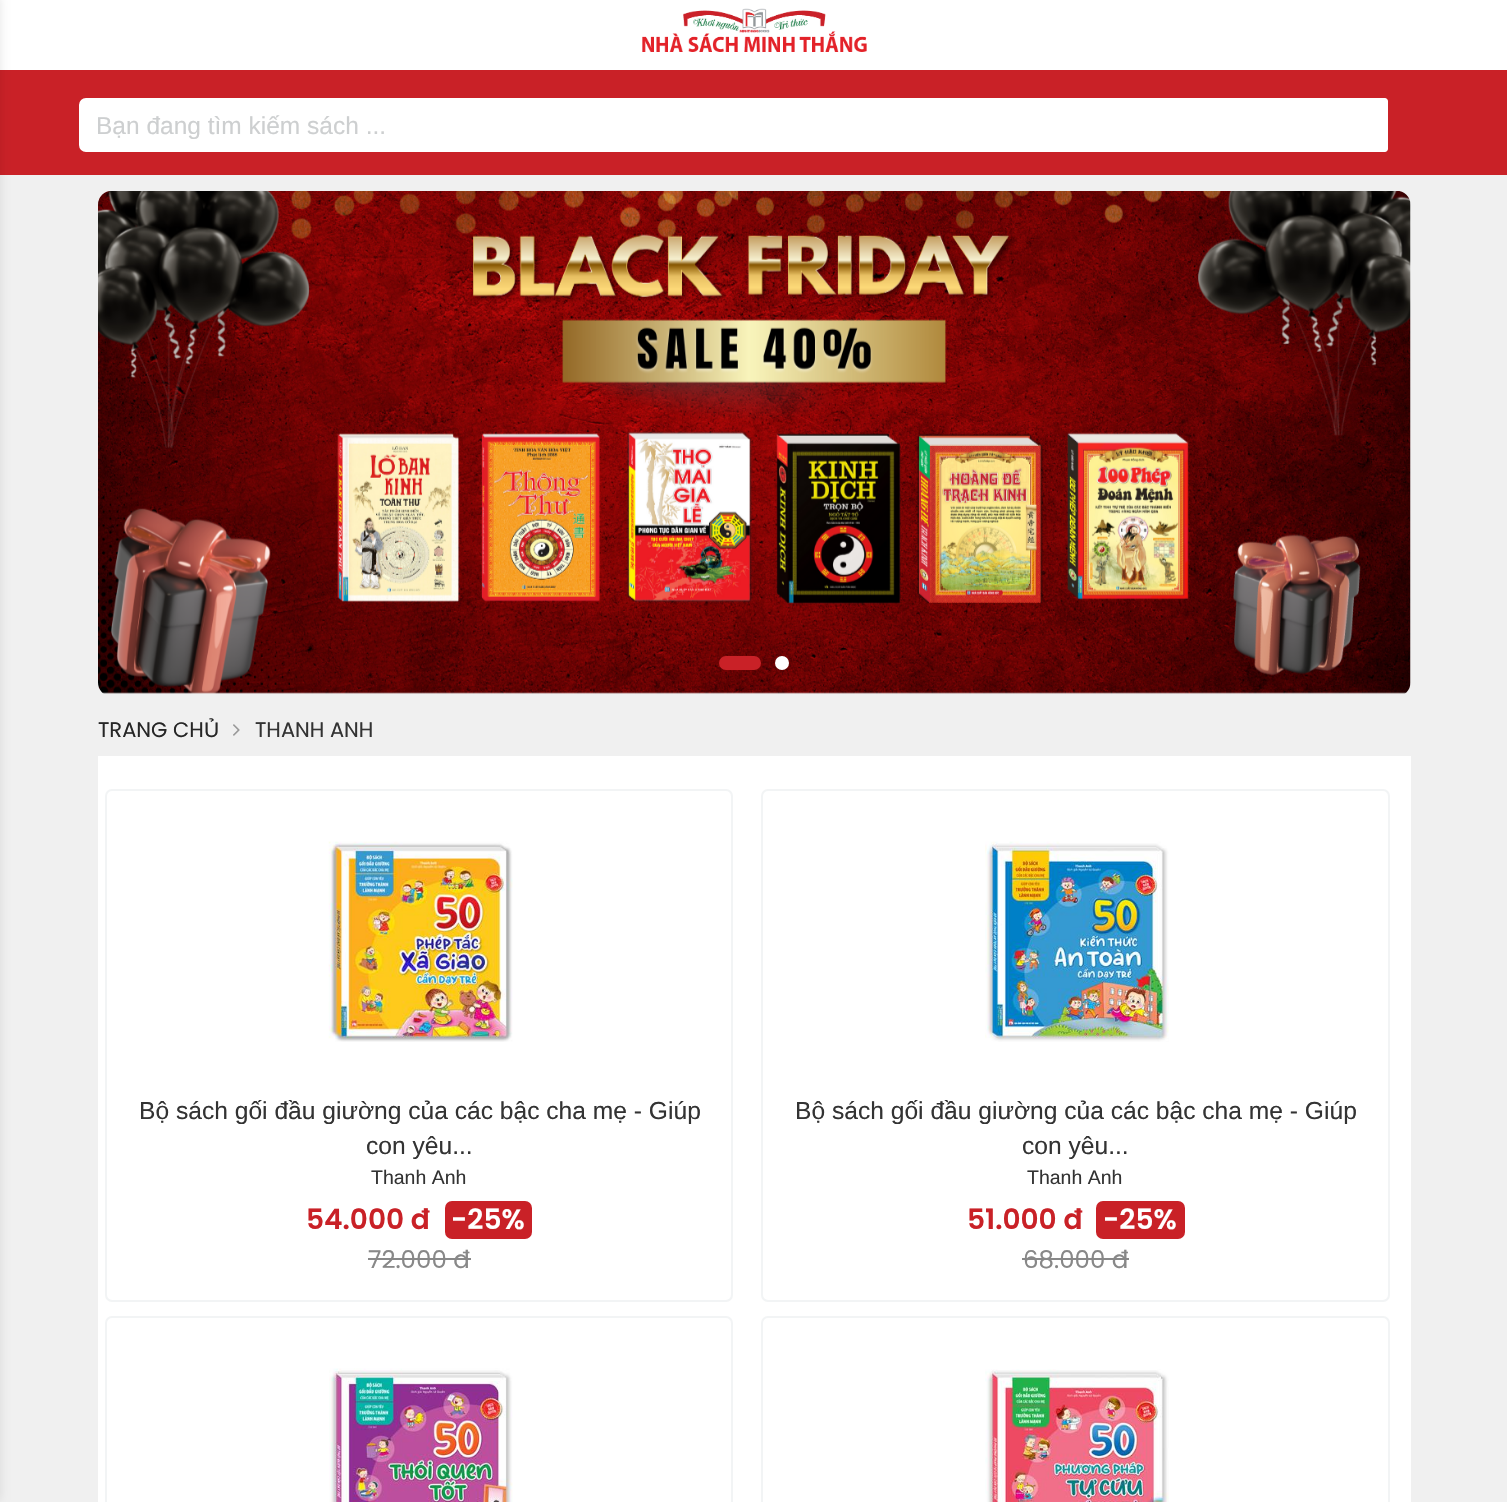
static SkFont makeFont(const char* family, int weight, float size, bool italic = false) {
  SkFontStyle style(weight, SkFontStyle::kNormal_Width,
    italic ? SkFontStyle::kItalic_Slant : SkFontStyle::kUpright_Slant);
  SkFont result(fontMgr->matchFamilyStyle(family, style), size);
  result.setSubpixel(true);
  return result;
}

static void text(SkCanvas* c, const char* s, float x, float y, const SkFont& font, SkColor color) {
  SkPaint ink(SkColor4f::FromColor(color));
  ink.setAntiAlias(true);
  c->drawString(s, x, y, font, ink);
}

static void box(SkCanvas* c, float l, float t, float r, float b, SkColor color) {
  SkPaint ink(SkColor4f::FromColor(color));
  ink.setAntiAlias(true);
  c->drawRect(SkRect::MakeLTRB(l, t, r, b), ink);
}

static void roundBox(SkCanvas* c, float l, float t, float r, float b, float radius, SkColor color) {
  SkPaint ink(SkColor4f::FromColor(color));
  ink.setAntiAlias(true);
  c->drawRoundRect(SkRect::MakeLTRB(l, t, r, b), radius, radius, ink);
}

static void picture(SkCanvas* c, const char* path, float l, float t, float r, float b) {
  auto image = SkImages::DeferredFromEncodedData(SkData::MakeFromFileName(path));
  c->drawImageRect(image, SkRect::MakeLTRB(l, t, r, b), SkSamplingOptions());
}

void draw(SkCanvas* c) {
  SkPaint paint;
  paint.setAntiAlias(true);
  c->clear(0xfff0f0f0);
  box(c, 0, 0, 1507, 70, 0xffffffff);
  picture(c, "img_01.png", 642, 8, 867, 52);
  box(c, 0, 70, 1507, 175, 0xffc92127);
  paint.setColor(0x1a000000);
  paint.setMaskFilter(SkMaskFilter::MakeBlur(kNormal_SkBlurStyle, 5));
  c->drawRect(SkRect::MakeLTRB(-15, -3, 0, 1500), paint);
  paint.setMaskFilter(nullptr);
  paint.setColor(0xffffffff);
  c->drawPath(SkPathBuilder().moveTo(86, 97).lineTo(1385, 97).cubicTo(1387, 97, 1389, 99, 1389, 101).lineTo(1389, 149).cubicTo(1389, 151, 1387, 153, 1385, 153).lineTo(86, 153).cubicTo(81.5f, 153, 78, 149.5f, 78, 145).lineTo(78, 105).cubicTo(78, 100.5f, 81.5f, 97, 86, 97).close().detach(), paint);
  paint.setStyle(SkPaint::kStroke_Style);
  paint.setStrokeWidth(2);
  paint.setColor(0xffc92127);
  c->drawPath(SkPathBuilder().moveTo(86, 97).lineTo(1385, 97).cubicTo(1387, 97, 1389, 99, 1389, 101).lineTo(1389, 149).cubicTo(1389, 151, 1387, 153, 1385, 153).lineTo(86, 153).cubicTo(81.5f, 153, 78, 149.5f, 78, 145).lineTo(78, 105).cubicTo(78, 100.5f, 81.5f, 97, 86, 97).close().detach(), paint);
  SkFont face1 = makeFont("Liberation Sans", 400, 24.5f);
  text(c, "Bạn đang tìm kiếm sách ...", 96, 134, face1, 0xffcdcfd0);
  picture(c, "img_02.png", 98, 191, 1411, 694);
  roundBox(c, 719, 656, 761, 670, 7, 0xffc92127);
  paint.setStyle(SkPaint::kFill_Style);
  paint.setColor(0xffffffff);
  c->drawCircle(782, 663, 7, paint);
  SkFont face2 = makeFont("Poppins", 400, 21);
  text(c, "TRANG CH", 98, 737, face2, 0xff262626);
  SkFont face3 = makeFont("Liberation Sans", 400, 21);
  text(c, "Ủ", 204, 737, face3, 0xff262626);
  picture(c, "img_03.png", 233, 724, 240, 736);
  text(c, "THANH ANH", 255, 737, face2, 0xff333333);
  box(c, 98, 756, 1411, 1502, 0xffffffff);
  paint.setStyle(SkPaint::kStroke_Style);
  paint.setColor(0xfff2f4f5);
  c->drawRoundRect(SkRect::MakeLTRB(106, 790, 732, 1301), 6, 6, paint);
  picture(c, "img_04.png", 328, 841, 513, 1042);
  SkFont face4 = makeFont("Liberation Sans", 400, 24.6f);
  text(c, "Bộ sách gối đầu giường của các bậc cha mẹ - Giúp", 139, 1119, face4, 0xff333333);
  text(c, "con yêu...", 366, 1154, face4, 0xff333333);
  SkFont face5 = makeFont("Liberation Sans", 400, 19.5f);
  text(c, "Thanh Anh", 371, 1184, face5, 0xff333333);
  SkFont face6 = makeFont("Poppins", 600, 28);
  text(c, "54.000 đ", 306, 1229, face6, 0xffc92127);
  roundBox(c, 445, 1201, 532, 1239, 7, 0xffc92127);
  text(c, "-25%", 451, 1229, face6, 0xffffffff);
  SkFont face7 = makeFont("Poppins", 400, 24.5f);
  text(c, "72.000 đ", 368, 1268, face7, 0xff888888);
  box(c, 368, 1258, 471, 1260, 0xff888888);
  c->drawRoundRect(SkRect::MakeLTRB(762, 790, 1389, 1301), 6, 6, paint);
  picture(c, "img_05.png", 985, 841, 1169, 1042);
  text(c, "Bộ sách gối đầu giường của các bậc cha mẹ - Giúp", 795, 1119, face4, 0xff333333);
  text(c, "con yêu...", 1022, 1154, face4, 0xff333333);
  text(c, "Thanh Anh", 1027, 1184, face5, 0xff333333);
  text(c, "51.000 đ", 967, 1229, face6, 0xffc92127);
  roundBox(c, 1096, 1201, 1185, 1239, 7, 0xffc92127);
  text(c, "-25%", 1103, 1229, face6, 0xffffffff);
  text(c, "68.000 đ", 1023, 1268, face7, 0xff888888);
  box(c, 1022, 1258, 1129, 1260, 0xff888888);
  c->drawRoundRect(SkRect::MakeLTRB(106, 1317, 732, 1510), 6, 6, paint);
  picture(c, "img_06.png", 329, 1368, 513, 1502);
  c->drawRoundRect(SkRect::MakeLTRB(762, 1317, 1389, 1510), 6, 6, paint);
  picture(c, "img_07.png", 985, 1369, 1169, 1502);
}
